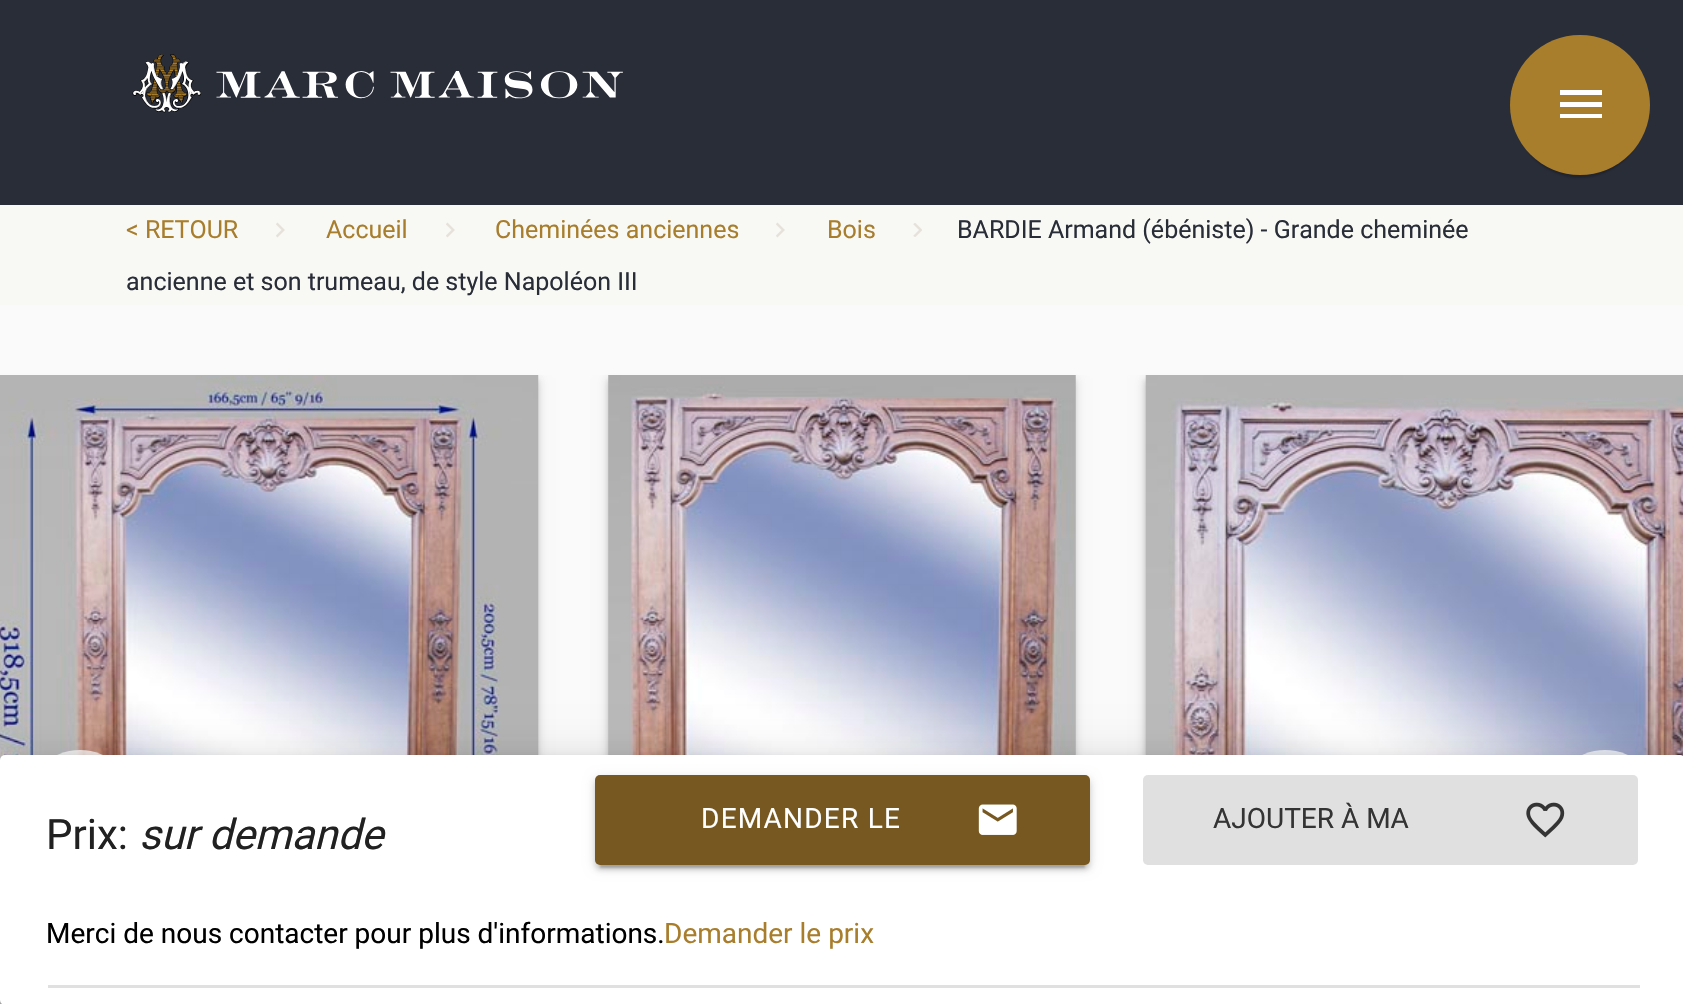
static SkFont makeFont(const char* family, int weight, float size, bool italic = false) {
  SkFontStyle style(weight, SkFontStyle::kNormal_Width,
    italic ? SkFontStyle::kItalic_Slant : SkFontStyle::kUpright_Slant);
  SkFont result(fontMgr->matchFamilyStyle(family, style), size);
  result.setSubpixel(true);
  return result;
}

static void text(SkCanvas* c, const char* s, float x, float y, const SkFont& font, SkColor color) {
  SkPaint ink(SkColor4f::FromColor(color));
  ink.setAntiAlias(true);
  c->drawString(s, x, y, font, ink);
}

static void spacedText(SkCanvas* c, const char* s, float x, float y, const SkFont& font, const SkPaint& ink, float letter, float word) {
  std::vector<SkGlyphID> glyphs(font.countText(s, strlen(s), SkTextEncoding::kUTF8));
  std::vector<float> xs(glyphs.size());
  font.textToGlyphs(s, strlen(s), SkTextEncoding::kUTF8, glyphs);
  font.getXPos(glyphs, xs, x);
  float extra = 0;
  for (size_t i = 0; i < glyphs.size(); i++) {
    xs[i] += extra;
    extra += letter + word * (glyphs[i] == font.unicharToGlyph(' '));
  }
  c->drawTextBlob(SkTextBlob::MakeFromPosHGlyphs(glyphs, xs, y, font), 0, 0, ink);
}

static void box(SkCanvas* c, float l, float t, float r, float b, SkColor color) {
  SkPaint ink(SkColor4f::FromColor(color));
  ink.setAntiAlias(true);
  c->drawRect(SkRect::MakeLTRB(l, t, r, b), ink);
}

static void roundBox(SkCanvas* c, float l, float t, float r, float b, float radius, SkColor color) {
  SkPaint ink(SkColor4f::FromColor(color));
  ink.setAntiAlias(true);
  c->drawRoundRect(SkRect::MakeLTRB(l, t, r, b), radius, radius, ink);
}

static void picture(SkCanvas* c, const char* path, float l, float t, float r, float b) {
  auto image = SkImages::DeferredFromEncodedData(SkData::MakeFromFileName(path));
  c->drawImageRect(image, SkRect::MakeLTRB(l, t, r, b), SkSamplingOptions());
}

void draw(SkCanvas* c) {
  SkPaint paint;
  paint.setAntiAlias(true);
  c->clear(0xfff8f9f4);
  box(c, 0, 0, 1683, 205, 0xff292d38);
  picture(c, "img_01.png", 132, 54, 623, 113);
  paint.setColor(0x33000000);
  paint.setMaskFilter(SkMaskFilter::MakeBlur(kNormal_SkBlurStyle, 1));
  c->drawRoundRect(SkRect::MakeLTRB(1515, 48, 1645, 178), 65, 65, paint);
  paint.setMaskFilter(nullptr);
  paint.setColor(0xffa87e2d);
  c->drawCircle(1580, 105, 70, paint);
  paint.setColor(0xffffffff);
  c->drawPath(SkPathBuilder().moveTo(1560, 90).lineTo(1602, 90).lineTo(1602, 95).lineTo(1560, 95).close().moveTo(1560, 107).lineTo(1560, 102).lineTo(1602, 102).lineTo(1602, 107).close().moveTo(1560, 118).lineTo(1560, 114).lineTo(1602, 114).lineTo(1602, 118).close().detach(), paint);
  picture(c, "img_02.png", 913, 223, 922, 237);
  SkFont face1 = makeFont("Roboto", 400, 25);
  text(c, "BARDIE Armand (ébéniste) - Grande cheminée", 957, 238, face1, 0xff292d38);
  text(c, "ancienne et son trumeau, de style Napoléon III", 126, 290, face1, 0xff292d38);
  text(c, "< RETOUR", 126, 238, face1, 0xffa87e2d);
  picture(c, "img_03.png", 276, 222, 285, 238);
  text(c, "Accueil", 326, 238, face1, 0xffa87e2d);
  picture(c, "img_03.png", 446, 222, 455, 238);
  text(c, "Cheminées anciennes", 495, 238, face1, 0xffa87e2d);
  picture(c, "img_03.png", 776, 222, 785, 238);
  text(c, "Bois", 827, 238, face1, 0xffa87e2d);
  box(c, 0, 305, 1683, 755, 0xfffafafa);
  c->save();
  c->clipRect(SkRect::MakeLTRB(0, 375, 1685, 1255));
  paint.setColor(0x1f000000);
  paint.setMaskFilter(SkMaskFilter::MakeBlur(kNormal_SkBlurStyle, 6));
  c->drawRect(SkRect::MakeLTRB(-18, 378, 538, 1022), paint);
  paint.setMaskFilter(nullptr);
  c->restore();
  paint.setColor(0x24000000);
  paint.setMaskFilter(SkMaskFilter::MakeBlur(kNormal_SkBlurStyle, 2.5f));
  c->drawRect(SkRect::MakeLTRB(-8, 380, 538, 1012), paint);
  paint.setMaskFilter(nullptr);
  picture(c, "img_04.png", 0, 375, 539, 1004);
  c->save();
  c->clipRect(SkRect::MakeLTRB(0, 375, 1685, 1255));
  paint.setColor(0x1f000000);
  paint.setMaskFilter(SkMaskFilter::MakeBlur(kNormal_SkBlurStyle, 6));
  c->drawRect(SkRect::MakeLTRB(608, 378, 1075, 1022), paint);
  paint.setMaskFilter(nullptr);
  c->restore();
  paint.setColor(0x24000000);
  paint.setMaskFilter(SkMaskFilter::MakeBlur(kNormal_SkBlurStyle, 2.5f));
  c->drawRect(SkRect::MakeLTRB(608, 380, 1075, 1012), paint);
  paint.setMaskFilter(nullptr);
  picture(c, "img_05.png", 608, 375, 1076, 755);
  c->save();
  c->clipRect(SkRect::MakeLTRB(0, 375, 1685, 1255));
  paint.setColor(0x1f000000);
  paint.setMaskFilter(SkMaskFilter::MakeBlur(kNormal_SkBlurStyle, 6));
  c->drawRect(SkRect::MakeLTRB(1145, 378, 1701, 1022), paint);
  paint.setMaskFilter(nullptr);
  c->restore();
  paint.setColor(0x24000000);
  paint.setMaskFilter(SkMaskFilter::MakeBlur(kNormal_SkBlurStyle, 2.5f));
  c->drawRect(SkRect::MakeLTRB(1145, 380, 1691, 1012), paint);
  paint.setMaskFilter(nullptr);
  picture(c, "img_06.png", 1145, 375, 1683, 756);
  paint.setColor(0xbfffffff);
  c->drawCircle(80, 805, 55, paint);
  c->drawCircle(1605, 805, 55, paint);
  paint.setColor(0x4d000000);
  paint.setMaskFilter(SkMaskFilter::MakeBlur(kNormal_SkBlurStyle, 6));
  c->drawRoundRect(SkRect::MakeLTRB(3, 765, 1683, 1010), 2.5f, 2.5f, paint);
  paint.setMaskFilter(nullptr);
  paint.setColor(0x1f000000);
  paint.setMaskFilter(SkMaskFilter::MakeBlur(kNormal_SkBlurStyle, 22.5f));
  c->drawRoundRect(SkRect::MakeLTRB(0, 758, 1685, 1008), 5, 5, paint);
  paint.setMaskFilter(nullptr);
  paint.setColor(0x24000000);
  paint.setMaskFilter(SkMaskFilter::MakeBlur(kNormal_SkBlurStyle, 12.5f));
  c->drawRoundRect(SkRect::MakeLTRB(0, 770, 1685, 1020), 5, 5, paint);
  paint.setMaskFilter(nullptr);
  roundBox(c, 0, 755, 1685, 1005, 5, 0xffffffff);
  SkFont face2 = makeFont("Roboto", 400, 42);
  text(c, "Prix:", 46, 849, face2, 0xff212121);
  SkFont face3 = makeFont("Roboto", 400, 42, true);
  text(c, "sur demande", 139, 849, face3, 0xff212121);
  paint.setColor(0x33000000);
  paint.setMaskFilter(SkMaskFilter::MakeBlur(kNormal_SkBlurStyle, 1));
  c->drawRect(SkRect::MakeLTRB(600, 788, 1085, 868), paint);
  paint.setMaskFilter(nullptr);
  paint.setColor(0x1f000000);
  paint.setMaskFilter(SkMaskFilter::MakeBlur(kNormal_SkBlurStyle, 6));
  c->drawRoundRect(SkRect::MakeLTRB(595, 778, 1090, 868), 5, 5, paint);
  paint.setMaskFilter(nullptr);
  paint.setColor(0x24000000);
  paint.setMaskFilter(SkMaskFilter::MakeBlur(kNormal_SkBlurStyle, 2.5f));
  c->drawRoundRect(SkRect::MakeLTRB(595, 780, 1090, 870), 5, 5, paint);
  paint.setMaskFilter(nullptr);
  roundBox(c, 595, 775, 1090, 865, 5, 0xff765820);
  SkFont face4 = makeFont("Roboto", 400, 28);
  paint.setColor(0xffffffff);
  spacedText(c, "DEMANDER LE", 701, 828, face4, paint, 1.25f, 0);
  picture(c, "img_07.png", 978, 804, 1017, 835);
  roundBox(c, 1143, 775, 1638, 865, 5, 0xffe0e0e0);
  text(c, "AJOUTER À MA", 1213, 828, face4, 0xff343434);
  picture(c, "img_08.png", 1526, 802, 1565, 838);
  text(c, "Merci de nous contacter pour plus d'informations.", 46, 943, face4, 0xff000000);
  text(c, "Demander le prix", 664, 943, face4, 0xffa87e2d);
  box(c, 48, 985, 1640, 988, 0xffe0e0e0);
}
